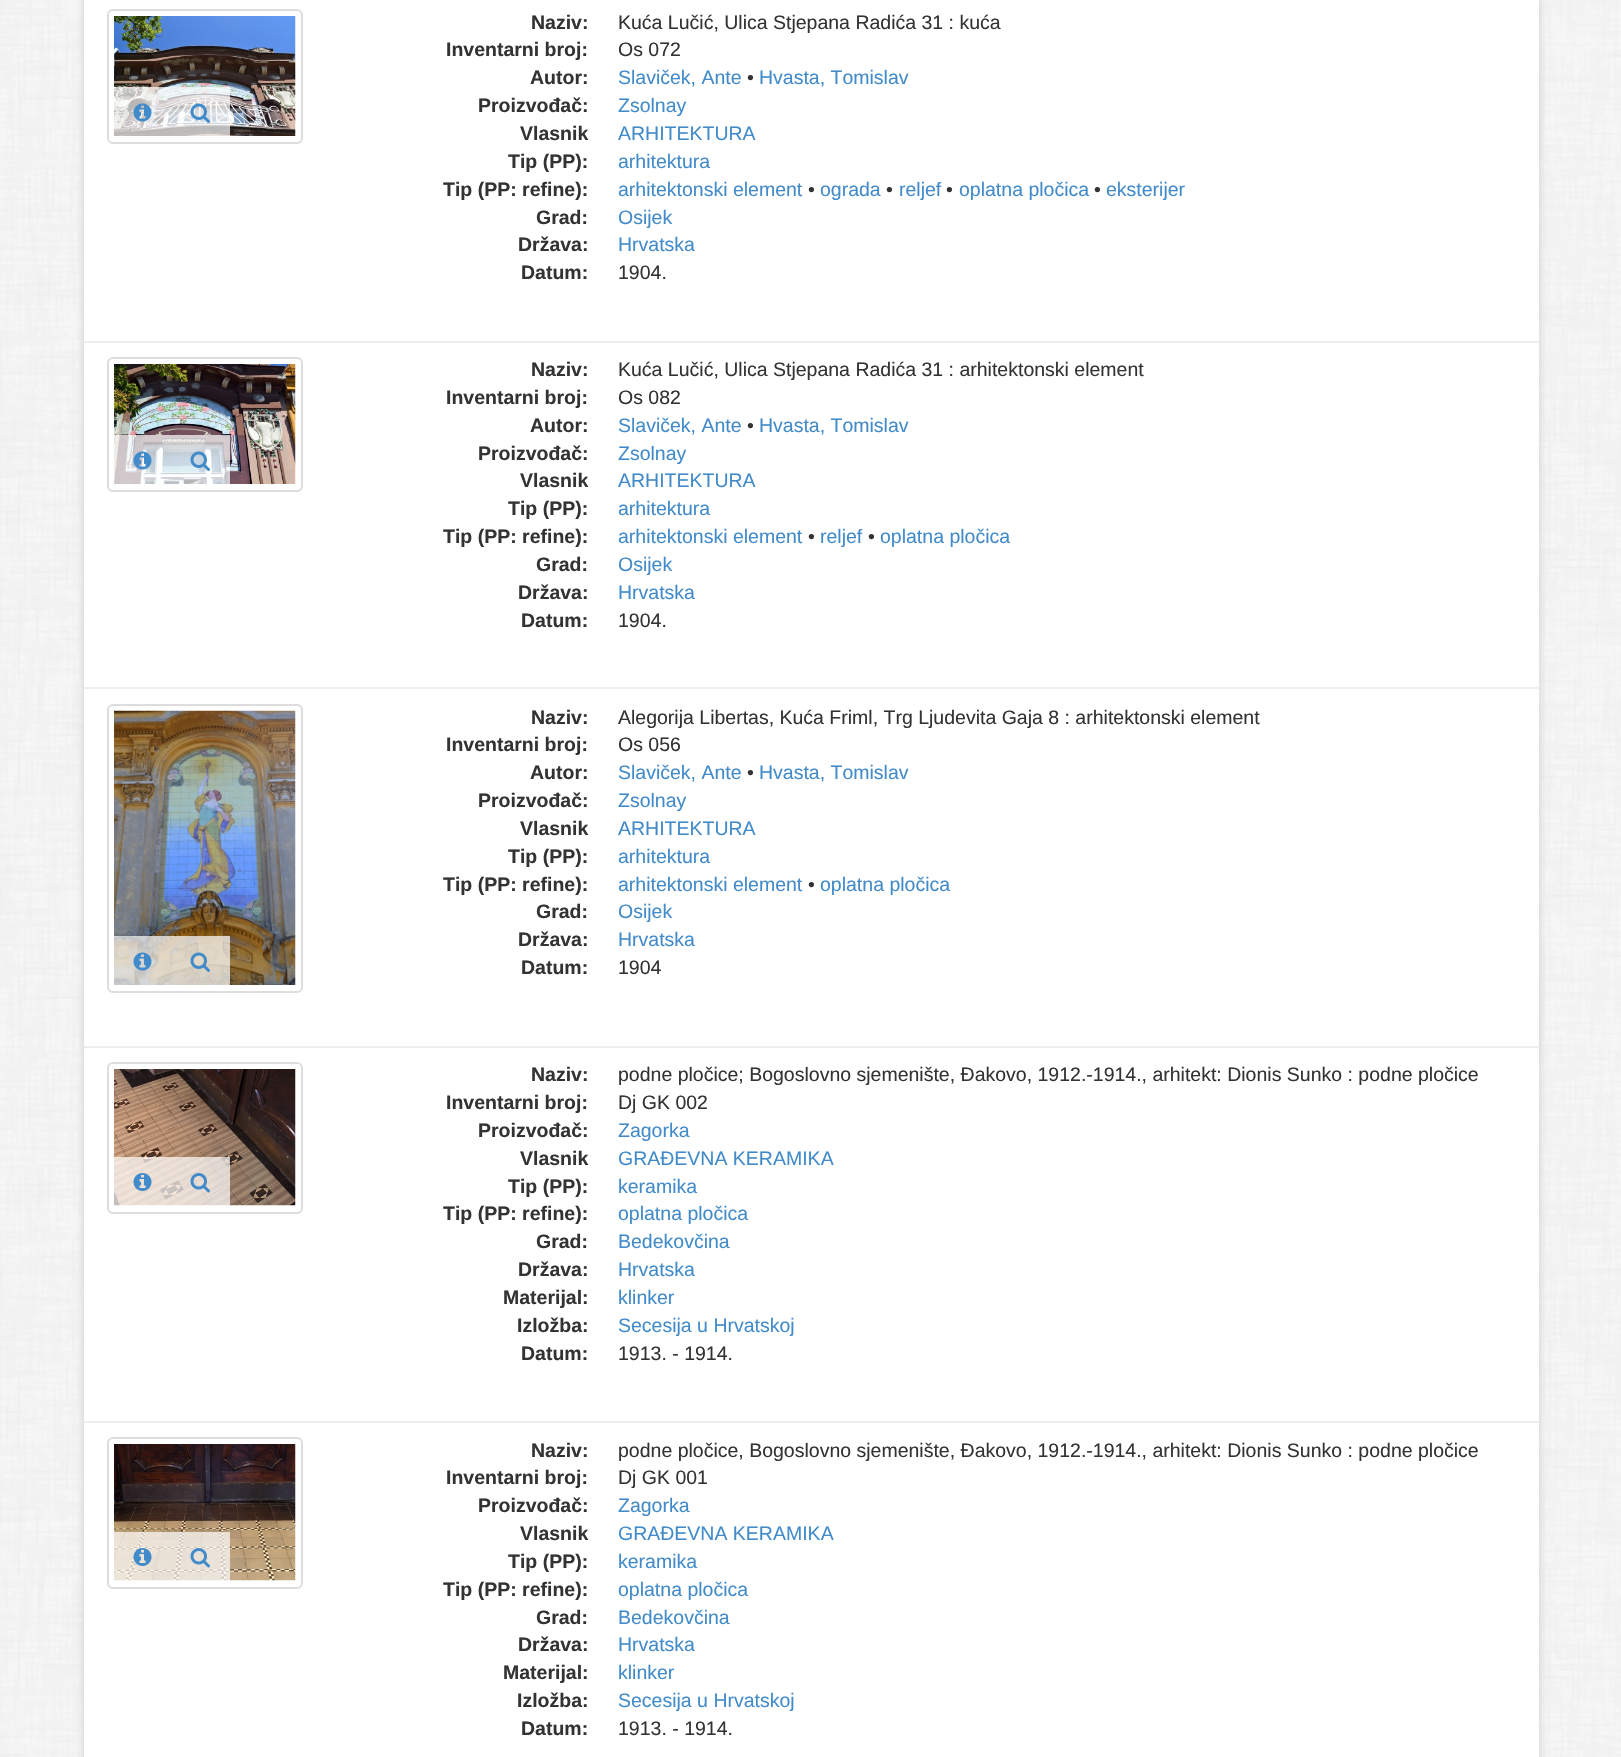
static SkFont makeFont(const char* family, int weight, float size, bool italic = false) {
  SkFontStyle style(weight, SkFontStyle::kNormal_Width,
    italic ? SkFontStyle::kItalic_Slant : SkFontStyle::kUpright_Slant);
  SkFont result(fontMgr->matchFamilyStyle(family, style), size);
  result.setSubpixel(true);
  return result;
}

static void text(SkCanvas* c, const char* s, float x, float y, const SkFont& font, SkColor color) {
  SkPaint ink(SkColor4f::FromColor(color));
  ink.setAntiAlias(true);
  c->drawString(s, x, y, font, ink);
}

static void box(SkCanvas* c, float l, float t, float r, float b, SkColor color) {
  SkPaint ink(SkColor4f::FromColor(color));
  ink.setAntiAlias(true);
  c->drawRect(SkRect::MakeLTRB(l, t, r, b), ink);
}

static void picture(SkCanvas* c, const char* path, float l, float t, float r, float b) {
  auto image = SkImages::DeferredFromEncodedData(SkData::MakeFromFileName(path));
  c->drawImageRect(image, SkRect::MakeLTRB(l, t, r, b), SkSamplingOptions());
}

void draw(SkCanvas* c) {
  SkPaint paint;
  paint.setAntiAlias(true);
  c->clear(0xffffffff);
  picture(c, "img_01.png", 0, 0, 1621, 1757);
  paint.setColor(0xffcccccc);
  paint.setMaskFilter(SkMaskFilter::MakeBlur(kNormal_SkBlurStyle, 4));
  c->drawRect(SkRect::MakeLTRB(84, -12, 1539, 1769), paint);
  paint.setMaskFilter(nullptr);
  box(c, 84, 0, 1539, 1757, 0xffffffff);
  box(c, 84, 341, 1539, 343, 0xffeeeeee);
  paint.setStyle(SkPaint::kStroke_Style);
  paint.setStrokeWidth(2);
  paint.setColor(0xffdddddd);
  c->drawRoundRect(SkRect::MakeLTRB(108, 10, 302, 143), 5, 5, paint);
  picture(c, "img_02.png", 114, 16, 296, 136);
  box(c, 114, 87, 230, 136, 0xb3ffffff);
  picture(c, "img_03.png", 133, 103, 152, 122);
  picture(c, "img_04.png", 190, 103, 210, 123);
  SkFont face1 = makeFont("Liberation Sans", 700, 19.5f);
  text(c, "Naziv:", 531, 29, face1, 0xff333333);
  SkFont face2 = makeFont("Liberation Sans", 400, 19.5f);
  text(c, "Kuća Lučić, Ulica Stjepana Radića 31 : kuća", 618, 29, face2, 0xff333333);
  text(c, "Inventarni broj:", 446, 56, face1, 0xff333333);
  text(c, "Os 072", 618, 56, face2, 0xff333333);
  text(c, "Autor:", 530, 84, face1, 0xff333333);
  text(c, "Slaviček, Ante", 618, 84, face2, 0xff428bca);
  text(c, "•", 747, 84, face2, 0xff333333);
  text(c, "Hvasta, Tomislav", 759, 84, face2, 0xff428bca);
  text(c, "Proizvođač:", 478, 112, face1, 0xff333333);
  text(c, "Zsolnay", 618, 112, face2, 0xff428bca);
  text(c, "Vlasnik", 520, 140, face1, 0xff333333);
  text(c, "ARHITEKTURA", 618, 140, face2, 0xff428bca);
  text(c, "Tip (PP):", 508, 168, face1, 0xff333333);
  text(c, "arhitektura", 618, 168, face2, 0xff428bca);
  text(c, "Tip (PP: refine):", 443, 196, face1, 0xff333333);
  text(c, "arhitektonski element", 618, 196, face2, 0xff428bca);
  text(c, "•", 808, 196, face2, 0xff333333);
  text(c, "ograda", 820, 196, face2, 0xff428bca);
  text(c, "•", 886, 196, face2, 0xff333333);
  text(c, "reljef", 899, 196, face2, 0xff428bca);
  text(c, "•", 946, 196, face2, 0xff333333);
  text(c, "oplatna pločica", 959, 196, face2, 0xff428bca);
  text(c, "•", 1094, 196, face2, 0xff333333);
  text(c, "eksterijer", 1106, 196, face2, 0xff428bca);
  text(c, "Grad:", 536, 224, face1, 0xff333333);
  text(c, "Osijek", 618, 224, face2, 0xff428bca);
  text(c, "Država:", 518, 251, face1, 0xff333333);
  text(c, "Hrvatska", 618, 251, face2, 0xff428bca);
  text(c, "Datum:", 521, 279, face1, 0xff333333);
  text(c, "1904.", 618, 279, face2, 0xff333333);
  box(c, 84, 687, 1539, 689, 0xffeeeeee);
  c->drawRoundRect(SkRect::MakeLTRB(108, 358, 302, 491), 5, 5, paint);
  picture(c, "img_05.png", 114, 364, 296, 484);
  box(c, 114, 435, 230, 484, 0xb3ffffff);
  picture(c, "img_06.png", 133, 451, 152, 470);
  picture(c, "img_07.png", 190, 451, 210, 471);
  text(c, "Naziv:", 531, 376, face1, 0xff333333);
  text(c, "Kuća Lučić, Ulica Stjepana Radića 31 : arhitektonski element", 618, 376, face2, 0xff333333);
  text(c, "Inventarni broj:", 446, 404, face1, 0xff333333);
  text(c, "Os 082", 618, 404, face2, 0xff333333);
  text(c, "Autor:", 530, 432, face1, 0xff333333);
  text(c, "Slaviček, Ante", 618, 432, face2, 0xff428bca);
  text(c, "•", 747, 432, face2, 0xff333333);
  text(c, "Hvasta, Tomislav", 759, 432, face2, 0xff428bca);
  text(c, "Proizvođač:", 478, 460, face1, 0xff333333);
  text(c, "Zsolnay", 618, 460, face2, 0xff428bca);
  text(c, "Vlasnik", 520, 487, face1, 0xff333333);
  text(c, "ARHITEKTURA", 618, 487, face2, 0xff428bca);
  text(c, "Tip (PP):", 508, 515, face1, 0xff333333);
  text(c, "arhitektura", 618, 515, face2, 0xff428bca);
  text(c, "Tip (PP: refine):", 443, 543, face1, 0xff333333);
  text(c, "arhitektonski element", 618, 543, face2, 0xff428bca);
  text(c, "•", 808, 543, face2, 0xff333333);
  text(c, "reljef", 820, 543, face2, 0xff428bca);
  text(c, "•", 868, 543, face2, 0xff333333);
  text(c, "oplatna pločica", 880, 543, face2, 0xff428bca);
  text(c, "Grad:", 536, 571, face1, 0xff333333);
  text(c, "Osijek", 618, 571, face2, 0xff428bca);
  text(c, "Država:", 518, 599, face1, 0xff333333);
  text(c, "Hrvatska", 618, 599, face2, 0xff428bca);
  text(c, "Datum:", 521, 627, face1, 0xff333333);
  text(c, "1904.", 618, 627, face2, 0xff333333);
  box(c, 84, 1046, 1539, 1048, 0xffeeeeee);
  c->drawRoundRect(SkRect::MakeLTRB(108, 705, 302, 992), 5, 5, paint);
  picture(c, "img_08.png", 114, 710, 296, 985);
  box(c, 114, 936, 230, 985, 0xb3ffffff);
  picture(c, "img_09.png", 133, 952, 152, 971);
  picture(c, "img_10.png", 190, 952, 210, 972);
  text(c, "Naziv:", 531, 724, face1, 0xff333333);
  text(c, "Alegorija Libertas, Kuća Friml, Trg Ljudevita Gaja 8 : arhitektonski element", 618, 724, face2, 0xff333333);
  text(c, "Inventarni broj:", 446, 751, face1, 0xff333333);
  text(c, "Os 056", 618, 751, face2, 0xff333333);
  text(c, "Autor:", 530, 779, face1, 0xff333333);
  text(c, "Slaviček, Ante", 618, 779, face2, 0xff428bca);
  text(c, "•", 747, 779, face2, 0xff333333);
  text(c, "Hvasta, Tomislav", 759, 779, face2, 0xff428bca);
  text(c, "Proizvođač:", 478, 807, face1, 0xff333333);
  text(c, "Zsolnay", 618, 807, face2, 0xff428bca);
  text(c, "Vlasnik", 520, 835, face1, 0xff333333);
  text(c, "ARHITEKTURA", 618, 835, face2, 0xff428bca);
  text(c, "Tip (PP):", 508, 863, face1, 0xff333333);
  text(c, "arhitektura", 618, 863, face2, 0xff428bca);
  text(c, "Tip (PP: refine):", 443, 891, face1, 0xff333333);
  text(c, "arhitektonski element", 618, 891, face2, 0xff428bca);
  text(c, "•", 808, 891, face2, 0xff333333);
  text(c, "oplatna pločica", 820, 891, face2, 0xff428bca);
  text(c, "Grad:", 536, 918, face1, 0xff333333);
  text(c, "Osijek", 618, 918, face2, 0xff428bca);
  text(c, "Država:", 518, 946, face1, 0xff333333);
  text(c, "Hrvatska", 618, 946, face2, 0xff428bca);
  text(c, "Datum:", 521, 974, face1, 0xff333333);
  text(c, "1904", 618, 974, face2, 0xff333333);
  box(c, 84, 1421, 1539, 1423, 0xffeeeeee);
  c->drawRoundRect(SkRect::MakeLTRB(108, 1063, 302, 1213), 5, 5, paint);
  picture(c, "img_11.png", 114, 1069, 296, 1206);
  box(c, 114, 1157, 230, 1206, 0xb3ffffff);
  picture(c, "img_12.png", 133, 1173, 152, 1191);
  picture(c, "img_13.png", 190, 1173, 210, 1193);
  text(c, "Naziv:", 531, 1081, face1, 0xff333333);
  text(c, "podne pločice; Bogoslovno sjemenište, Đakovo, 1912.-1914., arhitekt: Dionis Sunko : podne pločice", 618, 1081, face2, 0xff333333);
  text(c, "Inventarni broj:", 446, 1109, face1, 0xff333333);
  text(c, "Dj GK 002", 618, 1109, face2, 0xff333333);
  text(c, "Proizvođač:", 478, 1137, face1, 0xff333333);
  text(c, "Zagorka", 618, 1137, face2, 0xff428bca);
  text(c, "Vlasnik", 520, 1165, face1, 0xff333333);
  text(c, "GRAĐEVNA KERAMIKA", 618, 1165, face2, 0xff428bca);
  text(c, "Tip (PP):", 508, 1193, face1, 0xff333333);
  text(c, "keramika", 618, 1193, face2, 0xff428bca);
  text(c, "Tip (PP: refine):", 443, 1220, face1, 0xff333333);
  text(c, "oplatna pločica", 618, 1220, face2, 0xff428bca);
  text(c, "Grad:", 536, 1248, face1, 0xff333333);
  text(c, "Bedekovčina", 618, 1248, face2, 0xff428bca);
  text(c, "Država:", 518, 1276, face1, 0xff333333);
  text(c, "Hrvatska", 618, 1276, face2, 0xff428bca);
  text(c, "Materijal:", 503, 1304, face1, 0xff333333);
  text(c, "klinker", 618, 1304, face2, 0xff428bca);
  text(c, "Izložba:", 517, 1332, face1, 0xff333333);
  text(c, "Secesija u Hrvatskoj", 618, 1332, face2, 0xff428bca);
  text(c, "Datum:", 521, 1360, face1, 0xff333333);
  text(c, "1913. - 1914.", 618, 1360, face2, 0xff333333);
  c->drawRoundRect(SkRect::MakeLTRB(108, 1438, 302, 1588), 5, 5, paint);
  picture(c, "img_14.png", 114, 1444, 296, 1581);
  box(c, 114, 1532, 230, 1581, 0xb3ffffff);
  picture(c, "img_15.png", 133, 1548, 152, 1566);
  picture(c, "img_16.png", 190, 1548, 210, 1568);
  text(c, "Naziv:", 531, 1457, face1, 0xff333333);
  text(c, "podne pločice, Bogoslovno sjemenište, Đakovo, 1912.-1914., arhitekt: Dionis Sunko : podne pločice", 618, 1457, face2, 0xff333333);
  text(c, "Inventarni broj:", 446, 1484, face1, 0xff333333);
  text(c, "Dj GK 001", 618, 1484, face2, 0xff333333);
  text(c, "Proizvođač:", 478, 1512, face1, 0xff333333);
  text(c, "Zagorka", 618, 1512, face2, 0xff428bca);
  text(c, "Vlasnik", 520, 1540, face1, 0xff333333);
  text(c, "GRAĐEVNA KERAMIKA", 618, 1540, face2, 0xff428bca);
  text(c, "Tip (PP):", 508, 1568, face1, 0xff333333);
  text(c, "keramika", 618, 1568, face2, 0xff428bca);
  text(c, "Tip (PP: refine):", 443, 1596, face1, 0xff333333);
  text(c, "oplatna pločica", 618, 1596, face2, 0xff428bca);
  text(c, "Grad:", 536, 1624, face1, 0xff333333);
  text(c, "Bedekovčina", 618, 1624, face2, 0xff428bca);
  text(c, "Država:", 518, 1651, face1, 0xff333333);
  text(c, "Hrvatska", 618, 1651, face2, 0xff428bca);
  text(c, "Materijal:", 503, 1679, face1, 0xff333333);
  text(c, "klinker", 618, 1679, face2, 0xff428bca);
  text(c, "Izložba:", 517, 1707, face1, 0xff333333);
  text(c, "Secesija u Hrvatskoj", 618, 1707, face2, 0xff428bca);
  text(c, "Datum:", 521, 1735, face1, 0xff333333);
  text(c, "1913. - 1914.", 618, 1735, face2, 0xff333333);
}
